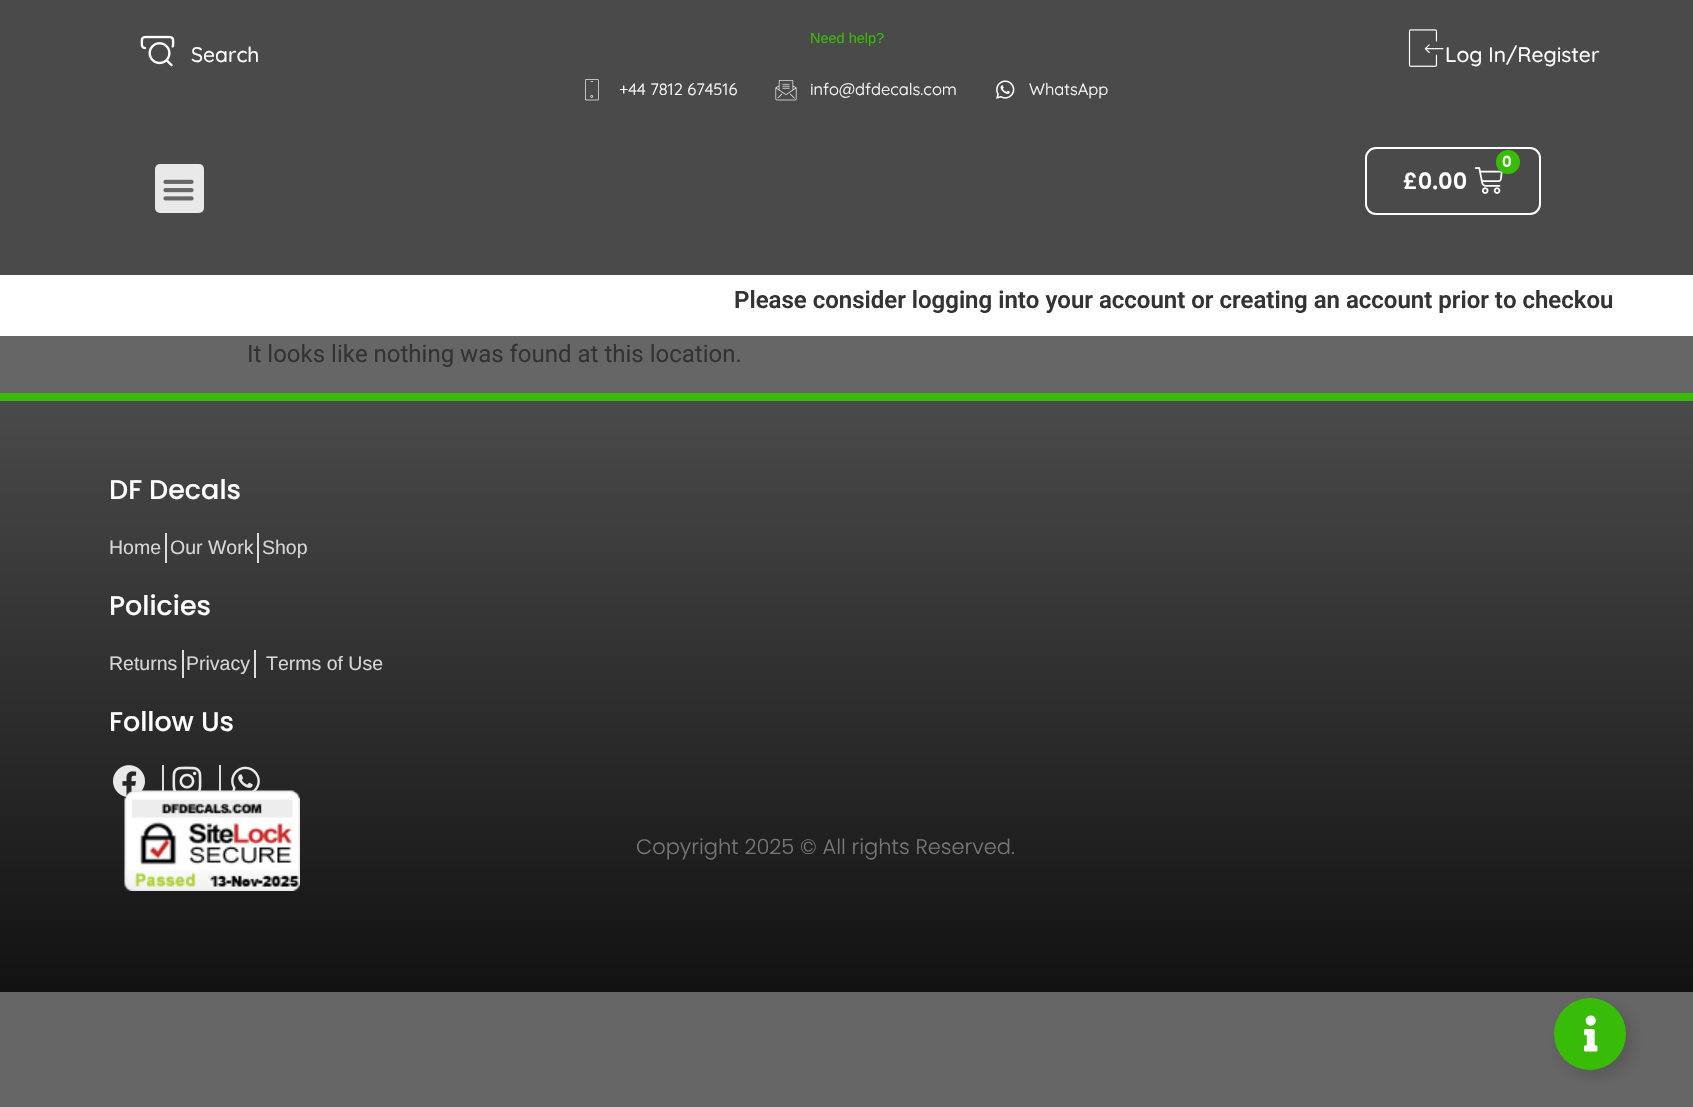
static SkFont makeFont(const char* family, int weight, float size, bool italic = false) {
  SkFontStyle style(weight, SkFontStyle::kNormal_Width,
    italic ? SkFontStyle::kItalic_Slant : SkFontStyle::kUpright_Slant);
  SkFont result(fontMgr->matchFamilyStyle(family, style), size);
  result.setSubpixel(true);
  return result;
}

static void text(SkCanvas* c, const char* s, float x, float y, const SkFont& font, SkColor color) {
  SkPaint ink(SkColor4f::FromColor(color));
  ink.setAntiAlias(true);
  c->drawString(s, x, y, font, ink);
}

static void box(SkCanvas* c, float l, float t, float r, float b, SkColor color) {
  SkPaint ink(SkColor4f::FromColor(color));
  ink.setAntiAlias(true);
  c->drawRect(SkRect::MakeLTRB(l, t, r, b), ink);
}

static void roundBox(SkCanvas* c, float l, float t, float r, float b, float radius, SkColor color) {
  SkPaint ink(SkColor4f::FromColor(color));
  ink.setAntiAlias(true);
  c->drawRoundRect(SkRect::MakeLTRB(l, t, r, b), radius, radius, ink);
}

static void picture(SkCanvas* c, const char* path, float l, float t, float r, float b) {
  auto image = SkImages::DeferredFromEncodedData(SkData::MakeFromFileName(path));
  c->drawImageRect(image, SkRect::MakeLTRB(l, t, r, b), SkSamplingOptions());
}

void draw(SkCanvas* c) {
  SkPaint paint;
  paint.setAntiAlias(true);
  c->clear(0xff666666);
  box(c, 0, 0, 1693, 275, 0xff4a4a4a);
  SkFont face1 = makeFont("Liberation Sans", 400, 14.5f);
  text(c, "Need help?", 810, 43, face1, 0xff39bc07);
  picture(c, "img_01.png", 585, 79, 599, 101);
  SkFont face2 = makeFont("Quicksand", 400, 16.5f);
  text(c, "+44 7812 674516", 619, 95, face2, 0xffffffff);
  picture(c, "img_02.png", 775, 80, 797, 101);
  text(c, "info@dfdecals.com", 810, 95, face2, 0xffffffff);
  picture(c, "img_03.png", 996, 80, 1015, 99);
  text(c, "WhatsApp", 1029, 95, face2, 0xffffffff);
  picture(c, "img_04.png", 140, 35, 175, 67);
  SkFont face3 = makeFont("Quicksand", 500, 21);
  text(c, "Search", 191, 62, face3, 0xffffffff);
  picture(c, "img_05.png", 1408, 29, 1444, 67);
  text(c, "Log In/Register", 1445, 62, face3, 0xffffffff);
  roundBox(c, 155, 164, 204, 213, 5, 0xffe9e9e9);
  picture(c, "img_06.png", 163, 179, 194, 201);
  paint.setStyle(SkPaint::kStroke_Style);
  paint.setStrokeWidth(2);
  paint.setColor(0xffffffff);
  c->drawRoundRect(SkRect::MakeLTRB(1366, 148, 1540, 214), 10, 10, paint);
  picture(c, "img_07.png", 1474, 167, 1503, 194);
  paint.setStyle(SkPaint::kFill_Style);
  paint.setColor(0xff39bc07);
  c->drawCircle(1508, 162, 12, paint);
  SkFont face4 = makeFont("Poppins", 600, 15);
  text(c, "0", 1502, 167, face4, 0xffffffff);
  SkFont face5 = makeFont("Poppins", 600, 22.5f);
  text(c, "£0.00", 1403, 189, face5, 0xffffffff);
  box(c, 0, 275, 1693, 336, 0xffffffff);
  SkFont face6 = makeFont("Roboto", 600, 24);
  text(c, "Please consider logging into your account or creating an account prior to checkou", 734, 308, face6, 0xff333333);
  SkFont face7 = makeFont("Roboto", 400, 24);
  text(c, "It looks like nothing was found at this location.", 247, 362, face7, 0xff333333);
  {
    const SkColor colors[] = {0xff4a4a4a, 0xff121212};
    const float stops[] = {0, 1};
    const SkPoint ends[] = {{847, 400}, {847, 992}};
    paint.setShader(SkGradientShader::MakeLinear(ends, colors, stops, 2, SkTileMode::kClamp));
    paint.setAlpha(255);
  }
  c->drawRect(SkRect::MakeLTRB(0, 401, 1693, 992), paint);
  box(c, 0, 393, 1693, 401, 0xff39bc07);
  SkFont face8 = makeFont("Poppins", 500, 27);
  text(c, "DF Decals", 109, 499, face8, 0xffffffff);
  SkFont face9 = makeFont("Liberation Sans", 400, 19.5f);
  text(c, "Home", 109, 554, face9, 0xffd6d6d6);
  box(c, 165, 533, 167, 563, 0xffdddddd);
  text(c, "Our Work", 170, 554, face9, 0xffd6d6d6);
  box(c, 257, 533, 259, 563, 0xffdddddd);
  text(c, "Shop", 262, 554, face9, 0xffd6d6d6);
  text(c, "Policies", 109, 615, face8, 0xffffffff);
  text(c, "Returns", 109, 670, face9, 0xffd6d6d6);
  box(c, 182, 650, 184, 678, 0xffdddddd);
  text(c, "Privacy", 186, 670, face9, 0xffd6d6d6);
  box(c, 254, 650, 256, 678, 0xffdddddd);
  text(c, "Terms of Use", 266, 670, face9, 0xffd6d6d6);
  text(c, "Follow Us", 109, 731, face8, 0xffffffff);
  picture(c, "img_08.png", 113, 765, 145, 797);
  box(c, 162, 765, 164, 798, 0xffdddddd);
  picture(c, "img_09.png", 172, 766, 202, 791);
  box(c, 219, 765, 221, 798, 0xffdddddd);
  picture(c, "img_10.png", 231, 766, 260, 791);
  picture(c, "img_11.png", 124, 790, 300, 891);
  SkFont face10 = makeFont("Poppins", 300, 21);
  text(c, "Copyright 2025 © All rights Reserved.", 636, 854, face10, 0xff777777);
  paint.setShader(nullptr);
  paint.setColor(0x26000000);
  paint.setMaskFilter(SkMaskFilter::MakeBlur(kNormal_SkBlurStyle, 7.5f));
  c->drawRoundRect(SkRect::MakeLTRB(1560, 1004, 1632, 1076), 36, 36, paint);
  paint.setMaskFilter(nullptr);
  paint.setColor(0xff39bc07);
  c->drawCircle(1590, 1034, 36, paint);
  picture(c, "img_12.png", 1584, 1015, 1598, 1052);
}
